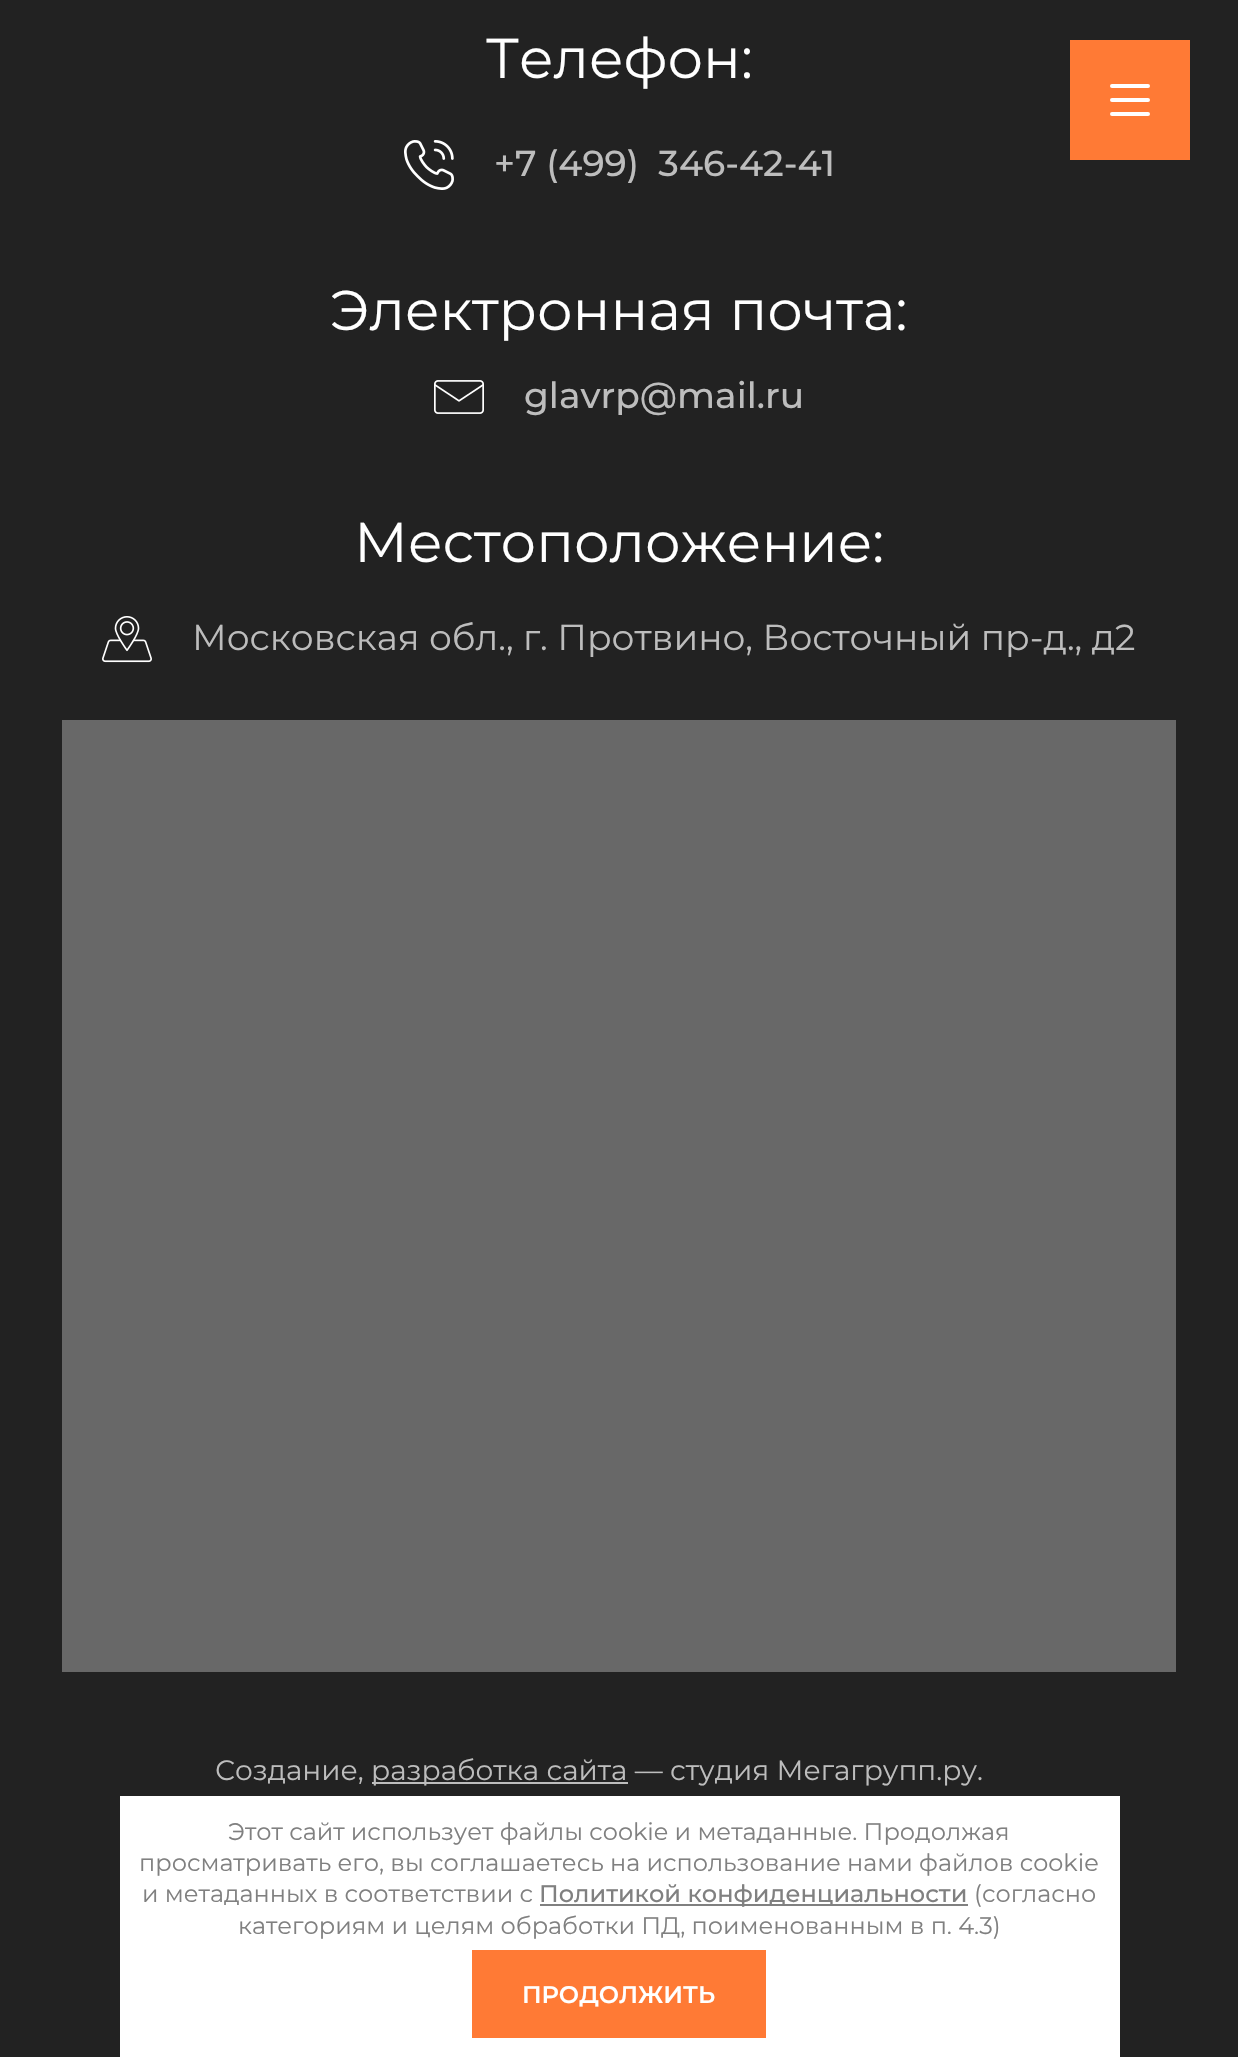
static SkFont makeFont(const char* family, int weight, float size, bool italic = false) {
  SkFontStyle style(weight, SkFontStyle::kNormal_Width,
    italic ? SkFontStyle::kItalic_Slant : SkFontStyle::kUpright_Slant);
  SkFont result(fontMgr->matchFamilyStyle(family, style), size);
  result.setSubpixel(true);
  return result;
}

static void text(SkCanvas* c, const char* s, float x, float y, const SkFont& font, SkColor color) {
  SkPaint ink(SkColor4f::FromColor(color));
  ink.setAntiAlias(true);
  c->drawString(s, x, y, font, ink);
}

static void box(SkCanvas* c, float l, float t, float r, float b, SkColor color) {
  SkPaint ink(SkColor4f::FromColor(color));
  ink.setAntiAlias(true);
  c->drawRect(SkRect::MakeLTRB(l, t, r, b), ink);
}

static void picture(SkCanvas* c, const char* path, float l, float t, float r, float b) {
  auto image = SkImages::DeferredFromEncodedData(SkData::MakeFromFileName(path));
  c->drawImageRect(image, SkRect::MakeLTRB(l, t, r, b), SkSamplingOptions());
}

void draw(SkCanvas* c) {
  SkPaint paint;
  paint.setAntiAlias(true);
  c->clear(0xff222222);
  SkFont face1 = makeFont("Montserrat", 400, 56);
  text(c, "Телефон:", 486, 78, face1, 0xffffffff);
  picture(c, "img_01.png", 404, 140, 454, 190);
  SkFont face2 = makeFont("Montserrat", 500, 36);
  text(c, "+7 (499)  346-42-41", 494, 176, face2, 0xffbdbdbd);
  text(c, "Электронная почта:", 330, 330, face1, 0xffffffff);
  picture(c, "img_02.png", 434, 380, 484, 414);
  text(c, "glavrp@mail.ru", 524, 408, face2, 0xffbdbdbd);
  text(c, "Местоположение:", 354, 562, face1, 0xffffffff);
  picture(c, "img_03.png", 102, 616, 152, 663);
  SkFont face3 = makeFont("Montserrat", 400, 36);
  text(c, "Московская обл., г. Протвино, Восточный пр-д., д2", 192, 650, face3, 0xffbdbdbd);
  box(c, 62, 720, 1176, 1672, 0xff686868);
  SkFont face4 = makeFont("Montserrat", 400, 28);
  text(c, "Создание,", 215, 1780, face4, 0xffbdbdbd);
  box(c, 372, 1782, 628, 1784, 0xffbdbdbd);
  text(c, "разработка сайта — студия Мегагрупп.ру.", 371, 1780, face4, 0xffbdbdbd);
  box(c, 120, 1796, 1120, 2057, 0xffffffff);
  SkFont face5 = makeFont("Montserrat", 400, 24);
  text(c, "Этот сайт использует файлы cookie и метаданные. Продолжая", 228, 1840, face5, 0xff808080);
  text(c, "просматривать его, вы соглашаетесь на использование нами файлов cookie", 139, 1871, face5, 0xff808080);
  text(c, "и метаданных в соответствии с", 142, 1902, face5, 0xff808080);
  box(c, 540, 1904, 968, 1906, 0xff808080);
  SkFont face6 = makeFont("Montserrat", 500, 24);
  text(c, "Политикой конфиденциальности", 539, 1902, face6, 0xff808080);
  text(c, "(согласно", 974, 1902, face5, 0xff808080);
  text(c, "категориям и целям обработки ПД, поименованным в п. 4.3)", 238, 1934, face5, 0xff808080);
  box(c, 472, 1950, 766, 2038, 0xffff7a35);
  SkFont face7 = makeFont("Montserrat", 600, 24);
  text(c, "ПРОДОЛЖИТЬ", 522, 2003, face7, 0xffffffff);
  box(c, 1070, 40, 1190, 160, 0xffff7a35);
  paint.setStyle(SkPaint::kStroke_Style);
  paint.setStrokeWidth(4);
  paint.setStrokeCap(SkPaint::kRound_Cap);
  paint.setStrokeJoin(SkPaint::kRound_Join);
  paint.setColor(0xffffffff);
  c->drawPath(SkPathBuilder().moveTo(1112, 100).lineTo(1148, 100).moveTo(1112, 114).lineTo(1148, 114).moveTo(1112, 86).lineTo(1148, 86).detach(), paint);
}
